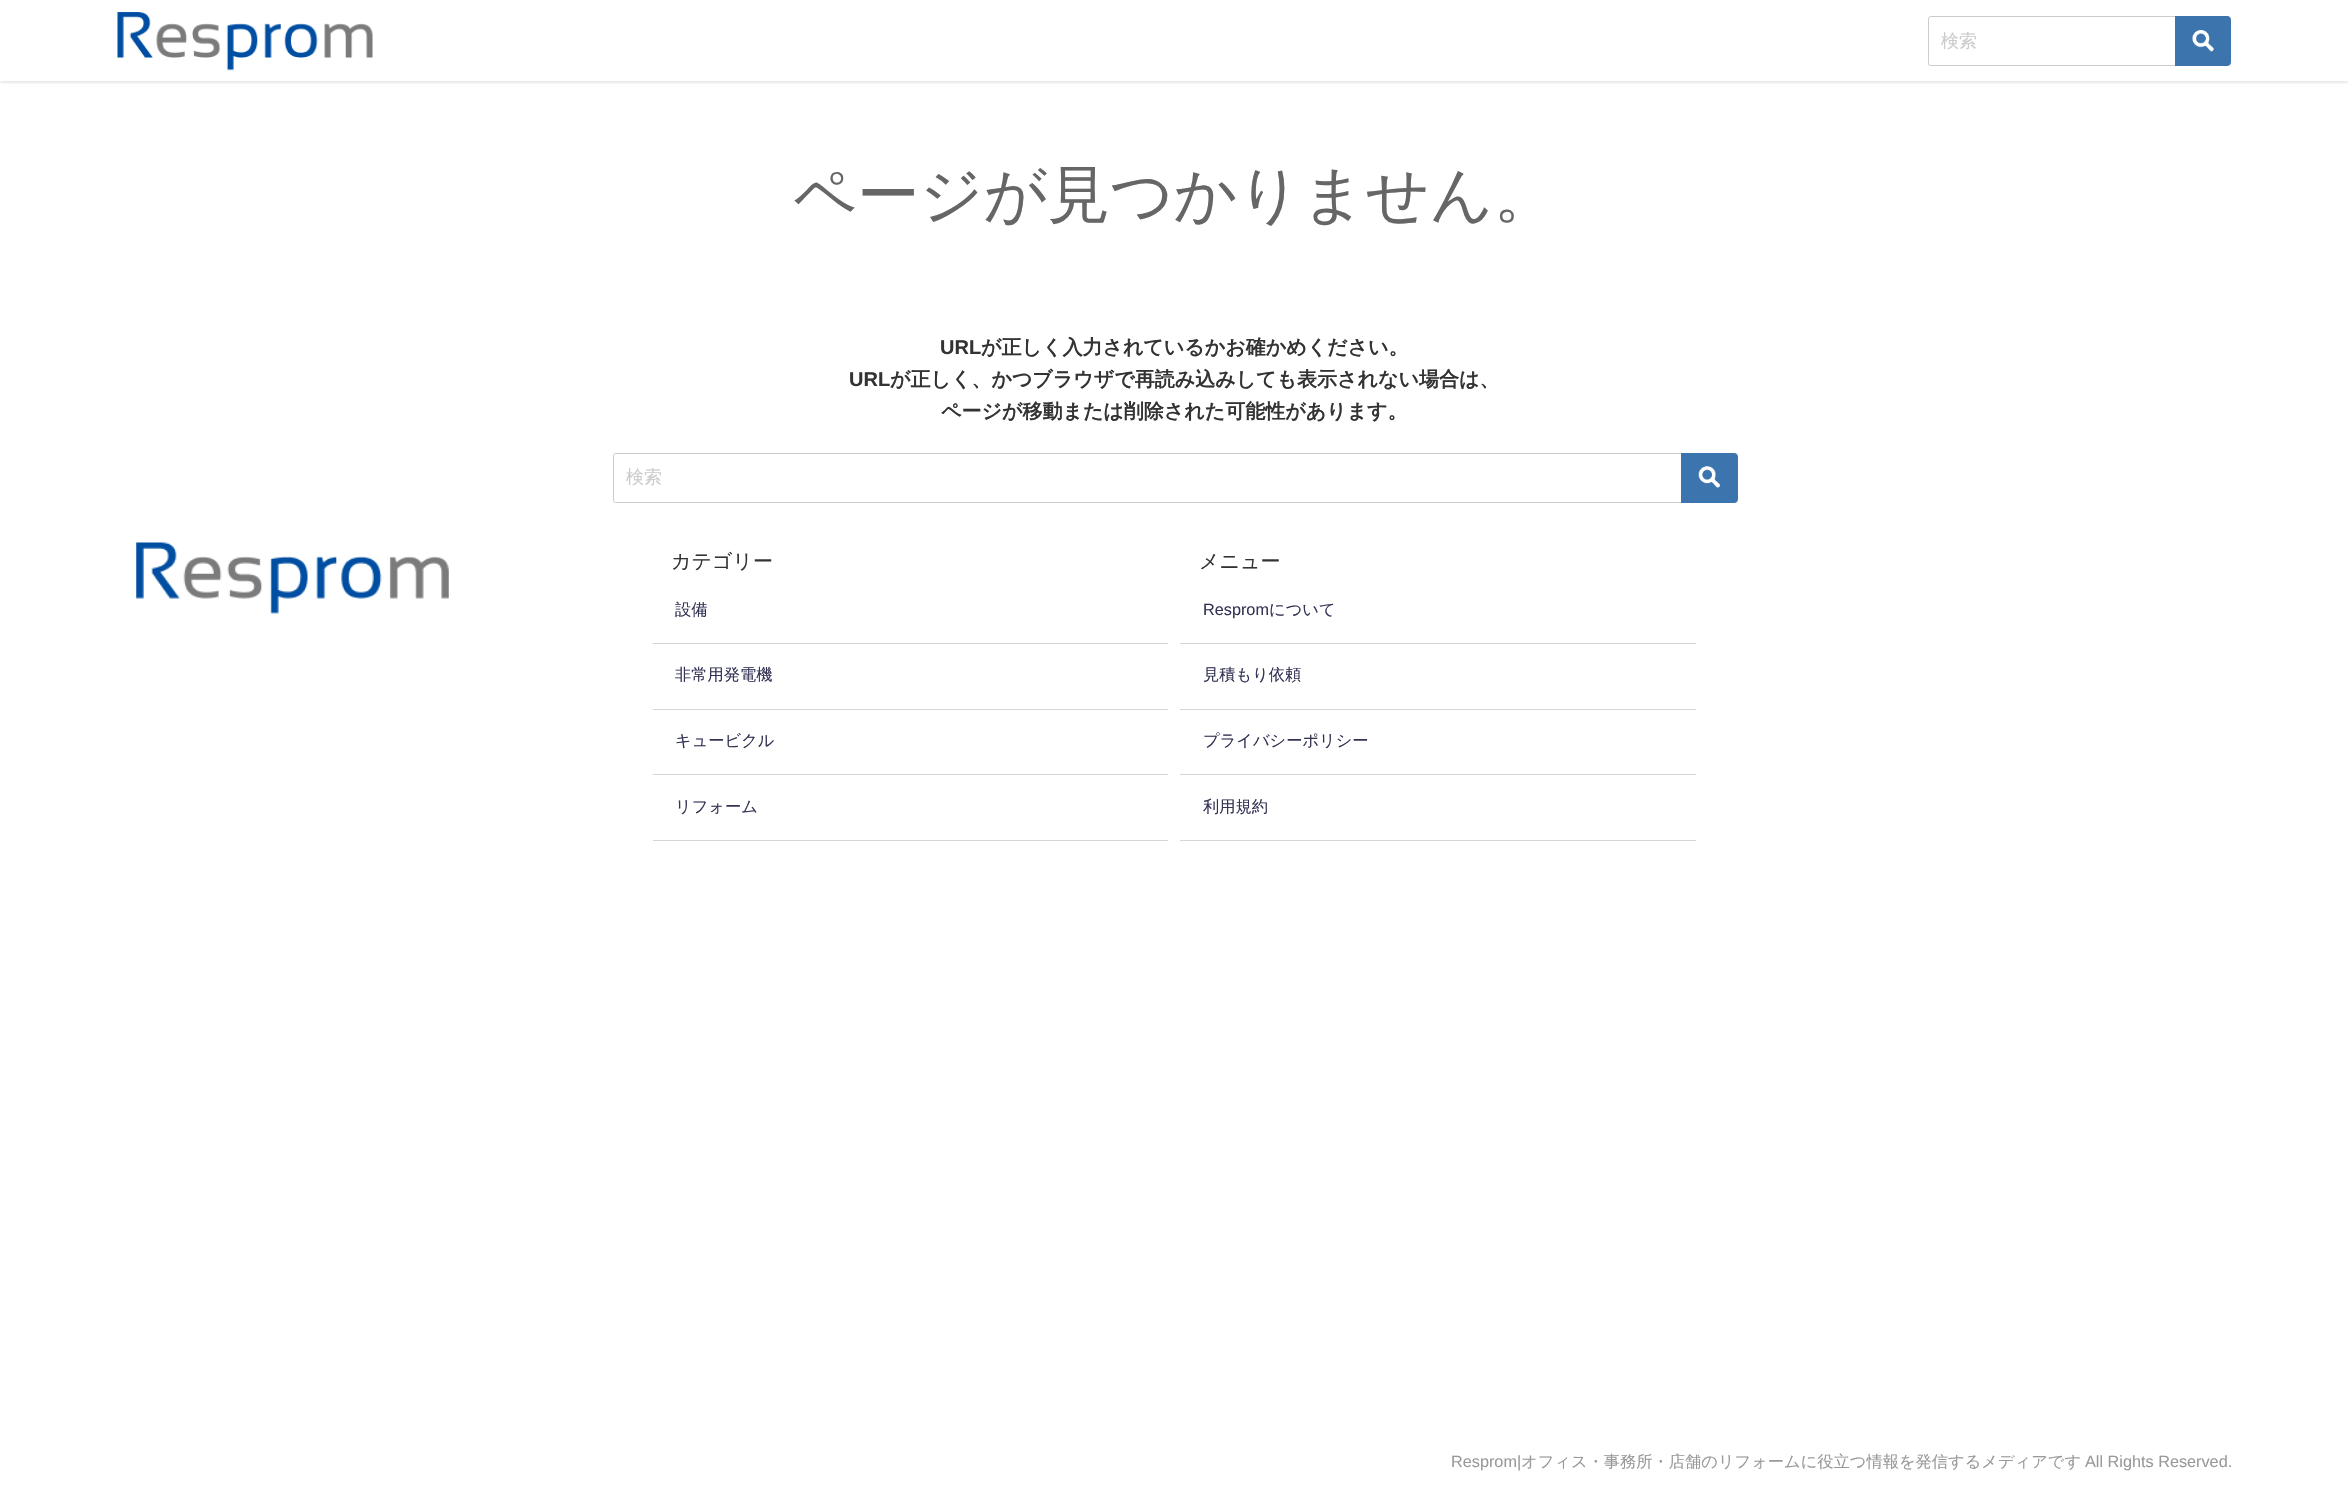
static SkFont makeFont(const char* family, int weight, float size, bool italic = false) {
  SkFontStyle style(weight, SkFontStyle::kNormal_Width,
    italic ? SkFontStyle::kItalic_Slant : SkFontStyle::kUpright_Slant);
  SkFont result(fontMgr->matchFamilyStyle(family, style), size);
  result.setSubpixel(true);
  return result;
}

static void text(SkCanvas* c, const char* s, float x, float y, const SkFont& font, SkColor color) {
  SkPaint ink(SkColor4f::FromColor(color));
  ink.setAntiAlias(true);
  c->drawString(s, x, y, font, ink);
}

static void box(SkCanvas* c, float l, float t, float r, float b, SkColor color) {
  SkPaint ink(SkColor4f::FromColor(color));
  ink.setAntiAlias(true);
  c->drawRect(SkRect::MakeLTRB(l, t, r, b), ink);
}

static void picture(SkCanvas* c, const char* path, float l, float t, float r, float b) {
  auto image = SkImages::DeferredFromEncodedData(SkData::MakeFromFileName(path));
  c->drawImageRect(image, SkRect::MakeLTRB(l, t, r, b), SkSamplingOptions());
}

void draw(SkCanvas* c) {
  SkPaint paint;
  paint.setAntiAlias(true);
  c->clear(0xffffffff);
  c->save();
  c->clipRect(SkRect::MakeLTRB(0, 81, 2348, 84));
  paint.setColor(0x33000000);
  paint.setMaskFilter(SkMaskFilter::MakeBlur(kNormal_SkBlurStyle, 2.5f));
  c->drawRect(SkRect::MakeLTRB(0, 0, 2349, 81), paint);
  paint.setMaskFilter(nullptr);
  c->restore();
  picture(c, "img_01.png", 117, 12, 373, 71);
  paint.setStyle(SkPaint::kStroke_Style);
  paint.setStrokeWidth(1);
  paint.setColor(0xffcccccc);
  c->drawRoundRect(SkRect::MakeLTRB(1928.5f, 16.5f, 2230.5f, 65.5f), 2, 2, paint);
  SkFont face1 = makeFont("WenQuanYi Zen Hei", 500, 18);
  text(c, "検索", 1941, 47, face1, 0xffcccccc);
  paint.setStyle(SkPaint::kFill_Style);
  paint.setColor(0xff3c74ad);
  c->drawPath(SkPathBuilder().moveTo(2175, 16).lineTo(2227, 16).cubicTo(2229, 16, 2231, 18, 2231, 20).lineTo(2231, 62).cubicTo(2231, 64, 2229, 66, 2227, 66).lineTo(2175, 66).close().detach(), paint);
  picture(c, "img_02.png", 2192, 30, 2214, 52);
  SkFont face2 = makeFont("WenQuanYi Zen Hei", 500, 62.5f);
  text(c, "ページが見つかりません。", 793, 216, face2, 0xff666666);
  SkFont face3 = makeFont("Liberation Sans", 700, 20);
  text(c, "URL", 940, 354, face3, 0xff333333);
  SkFont face4 = makeFont("WenQuanYi Zen Hei", 700, 20);
  text(c, "が正しく入力されているかお確かめください。", 981, 354, face4, 0xff333333);
  text(c, "URL", 849, 386, face3, 0xff333333);
  text(c, "が正しく、かつブラウザで再読み込みしても表示されない場合は、", 890, 386, face4, 0xff333333);
  text(c, "ページが移動または削除された可能性があります。", 941, 418, face4, 0xff333333);
  paint.setStyle(SkPaint::kStroke_Style);
  paint.setColor(0xffcccccc);
  c->drawRoundRect(SkRect::MakeLTRB(613.5f, 453.5f, 1737.5f, 502.5f), 2, 2, paint);
  text(c, "検索", 626, 483, face1, 0xffcccccc);
  paint.setStyle(SkPaint::kFill_Style);
  paint.setColor(0xff3c74ad);
  c->drawPath(SkPathBuilder().moveTo(1681, 453).lineTo(1734, 453).cubicTo(1736, 453, 1738, 455, 1738, 457).lineTo(1738, 499).cubicTo(1738, 501, 1736, 503, 1734, 503).lineTo(1681, 503).close().detach(), paint);
  picture(c, "img_03.png", 1698, 466, 1720, 488);
  picture(c, "img_04.png", 136, 542, 449, 614);
  SkFont face5 = makeFont("WenQuanYi Zen Hei", 500, 20);
  text(c, "カテゴリー", 671, 568, face5, 0xff333333);
  box(c, 653, 643, 1168, 644, 0xffd6d6d6);
  SkFont face6 = makeFont("WenQuanYi Zen Hei", 500, 16.25f);
  text(c, "設備", 675, 615, face6, 0xff333355);
  box(c, 653, 709, 1168, 710, 0xffd6d6d6);
  text(c, "非常用発電機", 675, 680, face6, 0xff333355);
  box(c, 653, 774, 1168, 775, 0xffd6d6d6);
  text(c, "キュービクル", 675, 746, face6, 0xff333355);
  box(c, 653, 840, 1168, 841, 0xffd6d6d6);
  text(c, "リフォーム", 675, 812, face6, 0xff333355);
  text(c, "メニュー", 1199, 568, face5, 0xff333333);
  box(c, 1180, 643, 1696, 644, 0xffd6d6d6);
  SkFont face7 = makeFont("Liberation Sans", 400, 16.25f);
  text(c, "Resprom", 1203, 615, face7, 0xff333355);
  text(c, "について", 1269, 615, face6, 0xff333355);
  box(c, 1180, 709, 1696, 710, 0xffd6d6d6);
  text(c, "見積もり依頼", 1203, 680, face6, 0xff333355);
  box(c, 1180, 774, 1696, 775, 0xffd6d6d6);
  text(c, "プライバシーポリシー", 1203, 746, face6, 0xff333355);
  box(c, 1180, 840, 1696, 841, 0xffd6d6d6);
  text(c, "利用規約", 1203, 812, face6, 0xff333355);
  text(c, "Resprom|", 1451, 1467, face7, 0xff999999);
  text(c, "オフィス・事務所・店舗のリフォームに役立つ情報を発信するメディアです", 1521, 1467, face6, 0xff999999);
  text(c, "All Rights Reserved.", 2085, 1467, face7, 0xff999999);
}
